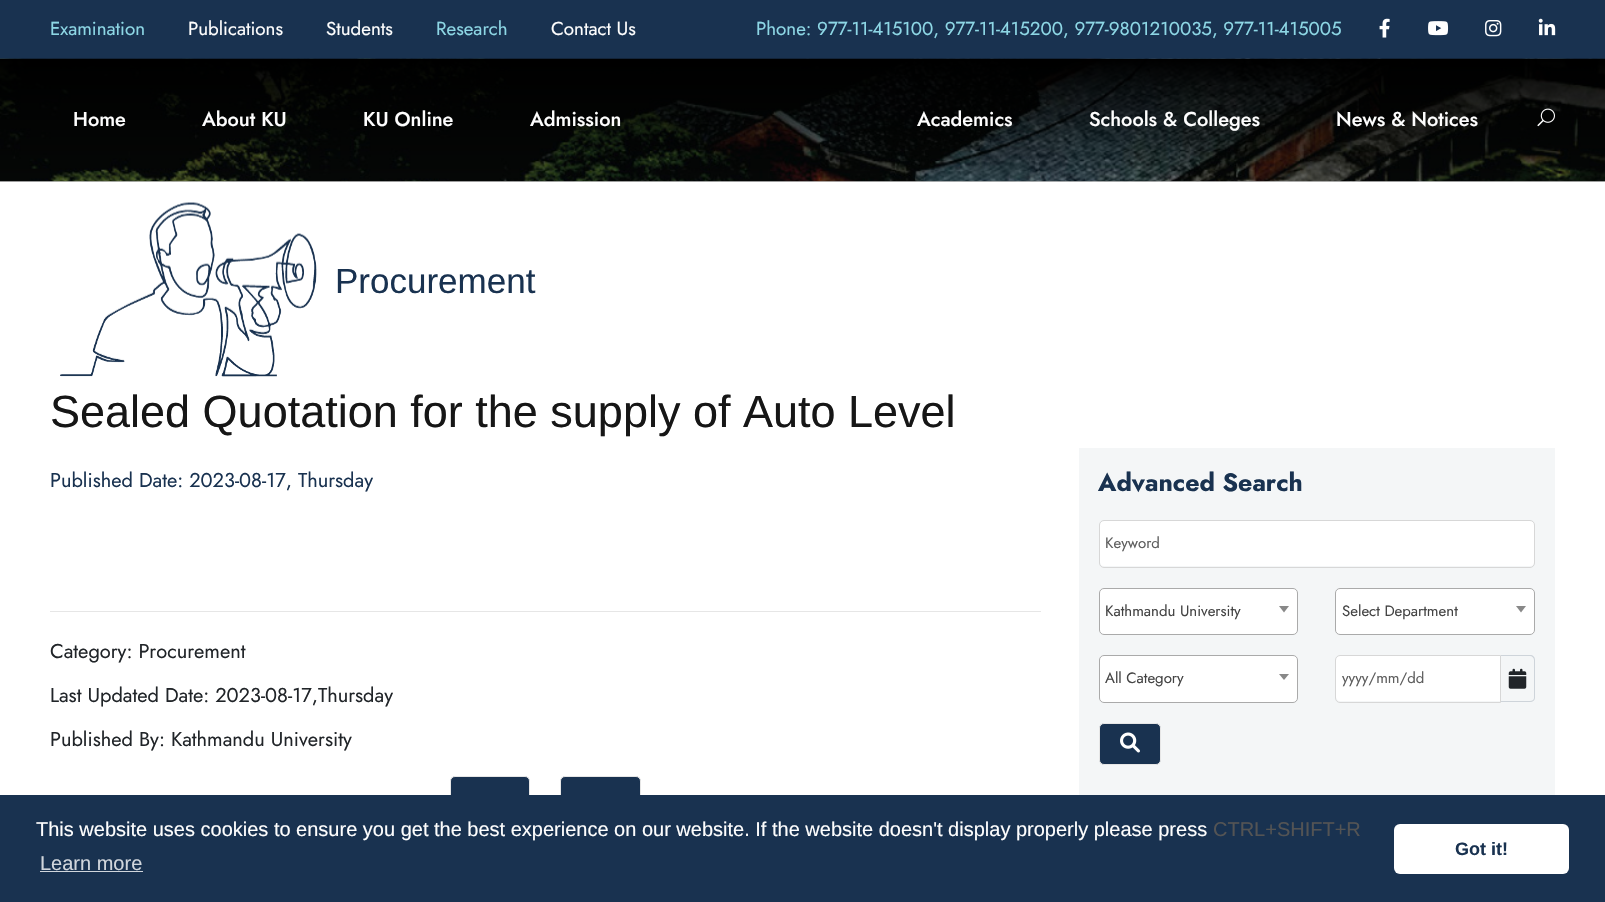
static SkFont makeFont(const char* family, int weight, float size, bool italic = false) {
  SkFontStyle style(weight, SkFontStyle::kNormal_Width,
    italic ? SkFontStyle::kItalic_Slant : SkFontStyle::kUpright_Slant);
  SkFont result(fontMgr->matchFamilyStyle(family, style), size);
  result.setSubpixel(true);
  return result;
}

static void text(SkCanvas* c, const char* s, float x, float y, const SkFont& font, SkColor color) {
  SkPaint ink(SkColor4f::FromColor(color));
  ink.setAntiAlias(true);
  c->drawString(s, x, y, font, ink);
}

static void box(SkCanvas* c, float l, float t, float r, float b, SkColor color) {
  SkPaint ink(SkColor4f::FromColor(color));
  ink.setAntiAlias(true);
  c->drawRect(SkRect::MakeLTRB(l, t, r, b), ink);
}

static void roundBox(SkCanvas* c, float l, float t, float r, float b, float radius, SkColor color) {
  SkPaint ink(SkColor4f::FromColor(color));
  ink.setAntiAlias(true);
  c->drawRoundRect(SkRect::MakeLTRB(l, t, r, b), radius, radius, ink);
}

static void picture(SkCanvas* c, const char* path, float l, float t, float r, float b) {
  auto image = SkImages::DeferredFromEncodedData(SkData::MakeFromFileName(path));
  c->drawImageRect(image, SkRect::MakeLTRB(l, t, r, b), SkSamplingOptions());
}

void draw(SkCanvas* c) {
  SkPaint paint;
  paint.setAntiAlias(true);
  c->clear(0xffffffff);
  box(c, 0, 0, 1605, 59, 0xff193250);
  SkFont face1 = makeFont("Jost", 400, 18.75f);
  text(c, "Examination", 50, 35, face1, 0xff8dd7e5);
  text(c, "Publications", 188, 35, face1, 0xfffefefe);
  text(c, "Students", 326, 35, face1, 0xfffefefe);
  text(c, "Research", 436, 35, face1, 0xff8dd7e5);
  text(c, "Contact Us", 551, 35, face1, 0xfffefefe);
  text(c, "Phone: 977-11-415100, 977-11-415200, 977-9801210035, 977-11-415005", 756, 35, face1, 0xff8dd7e5);
  picture(c, "img_01.png", 1379, 18, 1390, 38);
  picture(c, "img_02.png", 1428, 21, 1449, 36);
  picture(c, "img_03.png", 1485, 20, 1502, 37);
  picture(c, "img_04.png", 1538, 18, 1556, 36);
  picture(c, "img_05.png", 0, 58, 1605, 182);
  SkFont face2 = makeFont("Jost", 500, 20);
  text(c, "Home", 73, 126, face2, 0xfffefefe);
  text(c, "About KU", 202, 126, face2, 0xfffefefe);
  text(c, "KU Online", 363, 126, face2, 0xfffefefe);
  text(c, "Admission", 530, 126, face2, 0xfffefefe);
  text(c, "Academics", 917, 126, face2, 0xfffefefe);
  text(c, "Schools & Colleges", 1089, 126, face2, 0xfffefefe);
  text(c, "News & Notices", 1336, 126, face2, 0xfffefefe);
  picture(c, "img_06.png", 1537, 108, 1555, 127);
  picture(c, "img_07.png", 60, 202, 317, 377);
  SkFont face3 = makeFont("Liberation Sans", 400, 35);
  text(c, "Procurement", 335, 293, face3, 0xff193250);
  SkFont face4 = makeFont("Liberation Sans", 400, 45);
  text(c, "Sealed Quotation for the supply of Auto Level", 50, 427, face4, 0xff161616);
  SkFont face5 = makeFont("Jost", 400, 20);
  text(c, "Published Date: 2023-08-17, Thursday", 50, 487, face5, 0xff193250);
  box(c, 50, 611, 1041, 612, 0xffe6e6e6);
  text(c, "Category: Procurement", 50, 658, face5, 0xff212529);
  text(c, "Last Updated Date: 2023-08-17,Thursday", 50, 702, face5, 0xff212529);
  text(c, "Published By: Kathmandu University", 50, 746, face5, 0xff212529);
  paint.setColor(0xff193250);
  c->drawRoundRect(SkRect::MakeLTRB(450.5f, 776.5f, 529.5f, 818.5f), 4.5f, 4.5f, paint);
  paint.setStyle(SkPaint::kStroke_Style);
  paint.setStrokeWidth(1);
  paint.setColor(0xffe6e6e6);
  c->drawRoundRect(SkRect::MakeLTRB(450.5f, 776.5f, 529.5f, 818.5f), 4.5f, 4.5f, paint);
  paint.setStyle(SkPaint::kFill_Style);
  paint.setColor(0xff193250);
  c->drawRoundRect(SkRect::MakeLTRB(560.5f, 776.5f, 640.5f, 818.5f), 4.5f, 4.5f, paint);
  paint.setStyle(SkPaint::kStroke_Style);
  paint.setColor(0xffe6e6e6);
  c->drawRoundRect(SkRect::MakeLTRB(560.5f, 776.5f, 640.5f, 818.5f), 4.5f, 4.5f, paint);
  box(c, 1079, 448, 1555, 795, 0xfff4f6f7);
  SkFont face6 = makeFont("Jost", 700, 25);
  text(c, "Advanced Search", 1098, 491, face6, 0xff193250);
  roundBox(c, 1100, 521, 1534, 566, 4, 0xffffffff);
  paint.setColor(0xffd7d7d7);
  c->drawRoundRect(SkRect::MakeLTRB(1099.5f, 520.5f, 1534.5f, 567.5f), 4.5f, 4.5f, paint);
  SkFont face7 = makeFont("Jost", 400, 15);
  text(c, "Keyword", 1105, 548, face7, 0xff5e5e5e);
  paint.setStyle(SkPaint::kFill_Style);
  paint.setColor(0xffffffff);
  c->drawRoundRect(SkRect::MakeLTRB(1099.5f, 588.5f, 1297.5f, 634.5f), 4.5f, 4.5f, paint);
  paint.setStyle(SkPaint::kStroke_Style);
  paint.setColor(0xffaaaaaa);
  c->drawRoundRect(SkRect::MakeLTRB(1099.5f, 588.5f, 1297.5f, 634.5f), 4.5f, 4.5f, paint);
  text(c, "Kathmandu University", 1105, 616, face7, 0xff444444);
  paint.setStyle(SkPaint::kFill_Style);
  paint.setColor(0xff888888);
  c->drawPath(SkPathBuilder().moveTo(1279, 606).lineTo(1289, 606).lineTo(1284, 612.5f).close().detach(), paint);
  paint.setColor(0xffffffff);
  c->drawRoundRect(SkRect::MakeLTRB(1335.5f, 588.5f, 1534.5f, 634.5f), 4.5f, 4.5f, paint);
  paint.setStyle(SkPaint::kStroke_Style);
  paint.setColor(0xffaaaaaa);
  c->drawRoundRect(SkRect::MakeLTRB(1335.5f, 588.5f, 1534.5f, 634.5f), 4.5f, 4.5f, paint);
  text(c, "Select Department", 1342, 616, face7, 0xff444444);
  paint.setStyle(SkPaint::kFill_Style);
  paint.setColor(0xff888888);
  c->drawPath(SkPathBuilder().moveTo(1516, 606).lineTo(1526, 606).lineTo(1521, 612.5f).close().detach(), paint);
  paint.setColor(0xffffffff);
  c->drawRoundRect(SkRect::MakeLTRB(1099.5f, 655.5f, 1297.5f, 702.5f), 4.5f, 4.5f, paint);
  paint.setStyle(SkPaint::kStroke_Style);
  paint.setColor(0xffaaaaaa);
  c->drawRoundRect(SkRect::MakeLTRB(1099.5f, 655.5f, 1297.5f, 702.5f), 4.5f, 4.5f, paint);
  text(c, "All Category", 1105, 683, face7, 0xff444444);
  paint.setStyle(SkPaint::kFill_Style);
  paint.setColor(0xff888888);
  c->drawPath(SkPathBuilder().moveTo(1279, 674).lineTo(1289, 674).lineTo(1284, 680).close().detach(), paint);
  paint.setColor(0xffffffff);
  c->drawPath(SkPathBuilder().moveTo(1340, 656).lineTo(1500, 656).lineTo(1500, 701).lineTo(1340, 701).cubicTo(1338, 701, 1336, 699, 1336, 697).lineTo(1336, 660).cubicTo(1336, 658, 1338, 656, 1340, 656).close().detach(), paint);
  paint.setStyle(SkPaint::kStroke_Style);
  paint.setColor(0xffd7d7d7);
  c->drawPath(SkPathBuilder().moveTo(1340, 655.5f).lineTo(1500.5f, 655.5f).lineTo(1500.5f, 702.5f).lineTo(1340, 702.5f).cubicTo(1337.5f, 702.5f, 1335.5f, 700.5f, 1335.5f, 698).lineTo(1335.5f, 660).cubicTo(1335.5f, 657.5f, 1337.5f, 655.5f, 1340, 655.5f).close().detach(), paint);
  text(c, "yyyy/mm/dd", 1342, 683, face7, 0xff5e5e5e);
  paint.setStyle(SkPaint::kFill_Style);
  paint.setColor(0xffced4da);
  c->drawPath(SkPathBuilder(SkPathFillType::kEvenOdd).moveTo(1501, 655).lineTo(1530, 655).cubicTo(1533, 655, 1535, 657, 1535, 660).lineTo(1535, 698).cubicTo(1535, 700, 1533, 702, 1530, 702).lineTo(1501, 702).close().moveTo(1501, 656).lineTo(1530, 656).cubicTo(1532, 656, 1534, 658, 1534, 660).lineTo(1534, 698).cubicTo(1534, 700, 1532, 701, 1530, 701).lineTo(1501, 701).close().detach(), paint);
  picture(c, "img_08.png", 1508, 668, 1527, 689);
  paint.setColor(0xff193250);
  c->drawRoundRect(SkRect::MakeLTRB(1099.5f, 723.5f, 1160.5f, 764.5f), 4.5f, 4.5f, paint);
  paint.setStyle(SkPaint::kStroke_Style);
  paint.setColor(0xffe6e6e6);
  c->drawRoundRect(SkRect::MakeLTRB(1099.5f, 723.5f, 1160.5f, 764.5f), 4.5f, 4.5f, paint);
  picture(c, "img_09.png", 1120, 732, 1140, 753);
  box(c, 0, 795, 1605, 902, 0xff193250);
  SkFont face8 = makeFont("Liberation Sans", 400, 20);
  text(c, "This website uses cookies to ensure you get the best experience on our website. If the website doesn't display properly please press", 36, 836, face8, 0xfffefefe);
  text(c, "CTRL+SHIFT+R", 1213, 836, face8, 0xff545454);
  text(c, "Learn more", 40, 870, face8, 0xffd1d6dc);
  box(c, 40, 871, 143, 872, 0xffd1d6dc);
  roundBox(c, 1394, 824, 1569, 874, 6, 0xffffffff);
  SkFont face9 = makeFont("Liberation Sans", 700, 18);
  text(c, "Got it!", 1455, 855, face9, 0xff193250);
}
